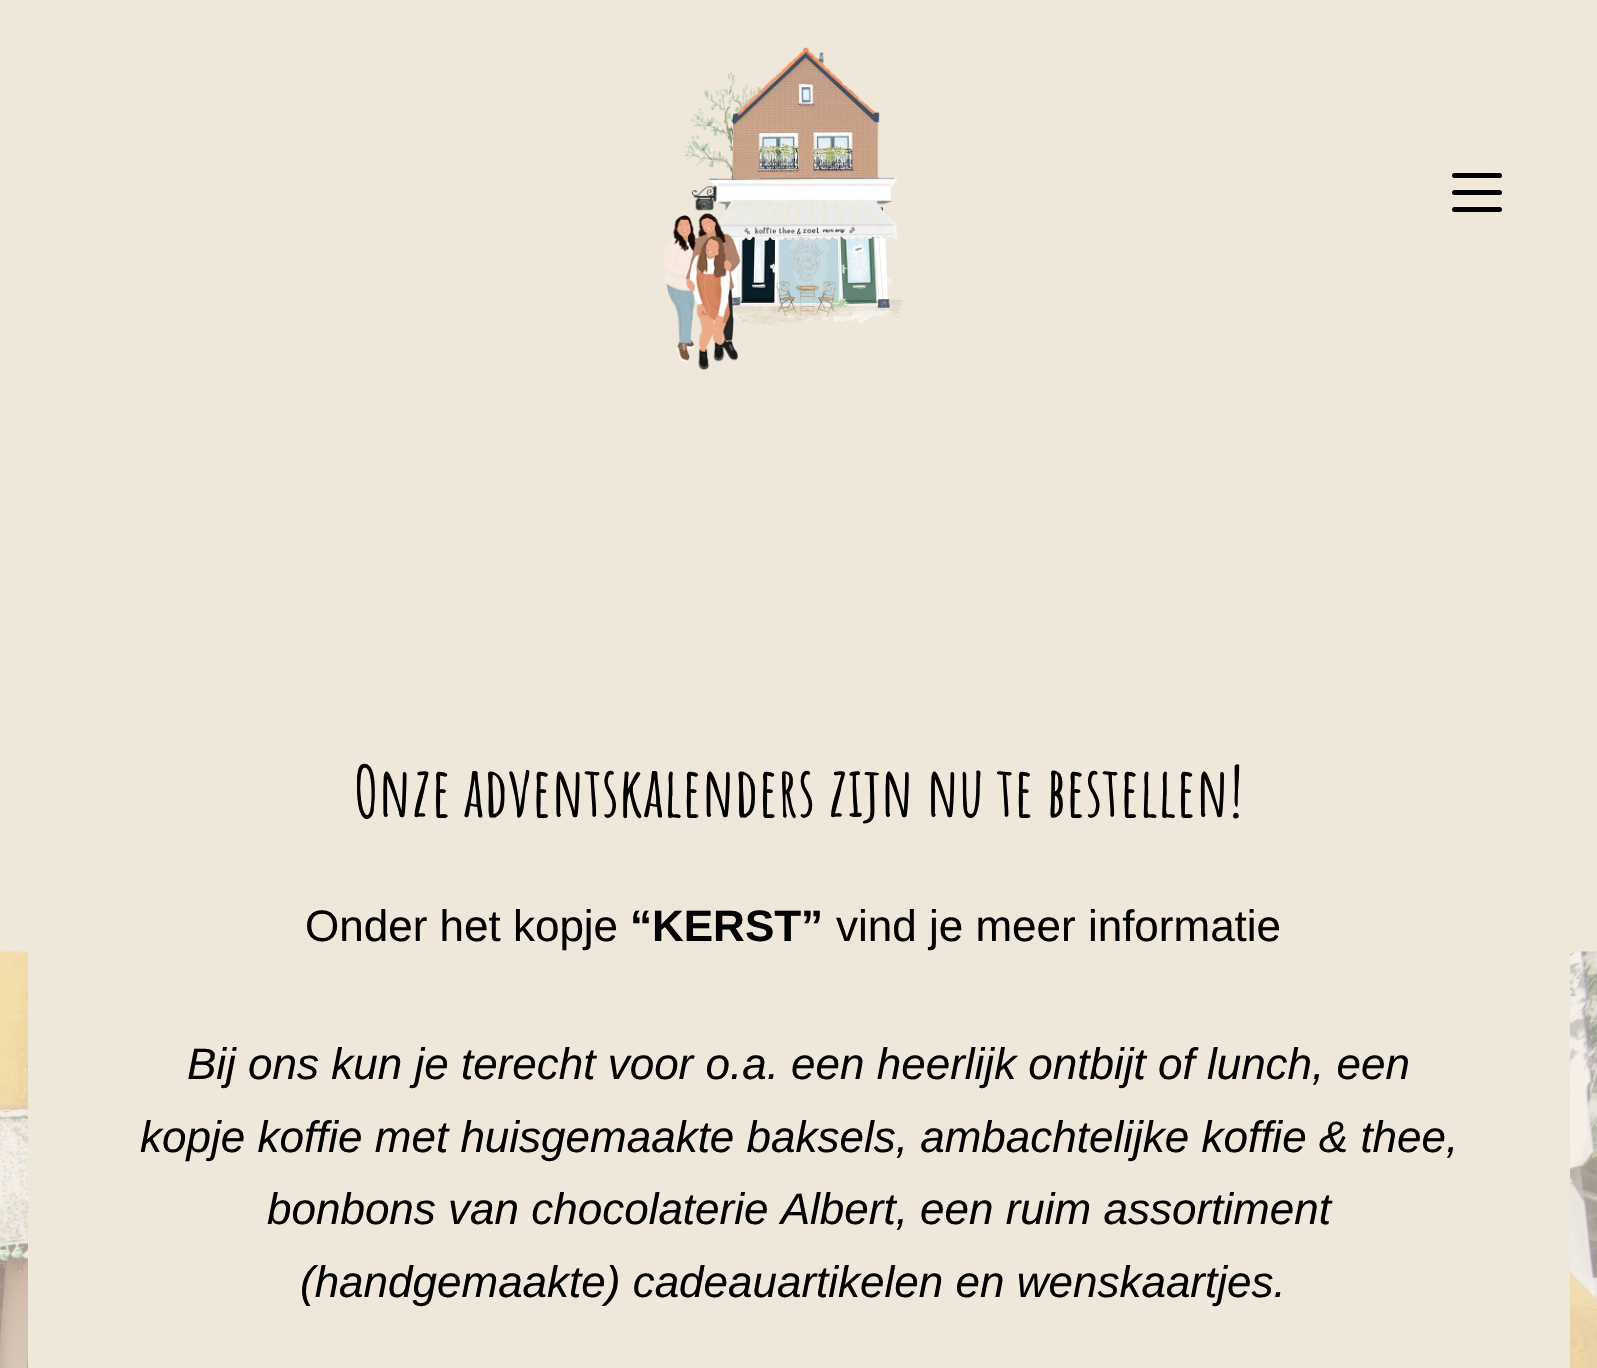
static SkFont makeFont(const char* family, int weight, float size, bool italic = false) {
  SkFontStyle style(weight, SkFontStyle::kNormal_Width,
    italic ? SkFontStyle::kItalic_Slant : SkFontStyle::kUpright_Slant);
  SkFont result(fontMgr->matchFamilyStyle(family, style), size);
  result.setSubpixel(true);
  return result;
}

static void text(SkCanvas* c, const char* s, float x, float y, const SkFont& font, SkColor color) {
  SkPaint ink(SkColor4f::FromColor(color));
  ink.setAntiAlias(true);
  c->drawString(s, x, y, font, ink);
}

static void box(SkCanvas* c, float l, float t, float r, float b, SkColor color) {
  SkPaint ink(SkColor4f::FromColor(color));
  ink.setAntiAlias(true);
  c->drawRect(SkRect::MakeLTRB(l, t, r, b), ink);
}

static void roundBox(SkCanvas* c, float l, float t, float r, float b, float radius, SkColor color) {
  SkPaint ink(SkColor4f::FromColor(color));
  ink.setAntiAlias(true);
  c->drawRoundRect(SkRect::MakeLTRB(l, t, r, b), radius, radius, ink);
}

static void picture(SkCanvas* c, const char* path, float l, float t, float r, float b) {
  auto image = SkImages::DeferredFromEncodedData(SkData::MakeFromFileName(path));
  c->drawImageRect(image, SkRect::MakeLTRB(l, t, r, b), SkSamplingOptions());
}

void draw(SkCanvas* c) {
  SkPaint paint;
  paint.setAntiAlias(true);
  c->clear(0xffefe7da);
  picture(c, "img_01.png", 664, 47, 903, 370);
  roundBox(c, 1452, 173, 1502, 178, 2.5f, 0xff000000);
  roundBox(c, 1452, 190, 1502, 195, 2.5f, 0xff000000);
  roundBox(c, 1452, 207, 1502, 212, 2.5f, 0xff000000);
  picture(c, "img_02.png", 0, 951, 1597, 1368);
  box(c, 28, 951, 1570, 1368, 0xffefe7da);
  SkFont face1 = makeFont("Amatic SC", 700, 68.75f);
  text(c, "Onze adventskalenders zijn nu te bestellen!", 354, 817, face1, 0xff000000);
  SkFont face2 = makeFont("Liberation Sans", 400, 44);
  text(c, "Onder het kopje", 305, 941, face2, 0xff000000);
  SkFont face3 = makeFont("Liberation Sans", 700, 44);
  text(c, "“KERST”", 630, 941, face3, 0xff000000);
  text(c, "vind je meer informatie", 836, 941, face2, 0xff000000);
  SkFont face4 = makeFont("Liberation Sans", 400, 44, true);
  text(c, "Bij ons kun je terecht voor o.a. een heerlijk ontbijt of lunch, een", 187, 1079, face4, 0xff000000);
  text(c, "kopje koffie met huisgemaakte baksels, ambachtelijke koffie & thee,", 140, 1152, face4, 0xff000000);
  text(c, "bonbons van chocolaterie Albert, een ruim assortiment", 267, 1224, face4, 0xff000000);
  text(c, "(handgemaakte) cadeauartikelen en wenskaartjes.", 300, 1297, face4, 0xff000000);
}
